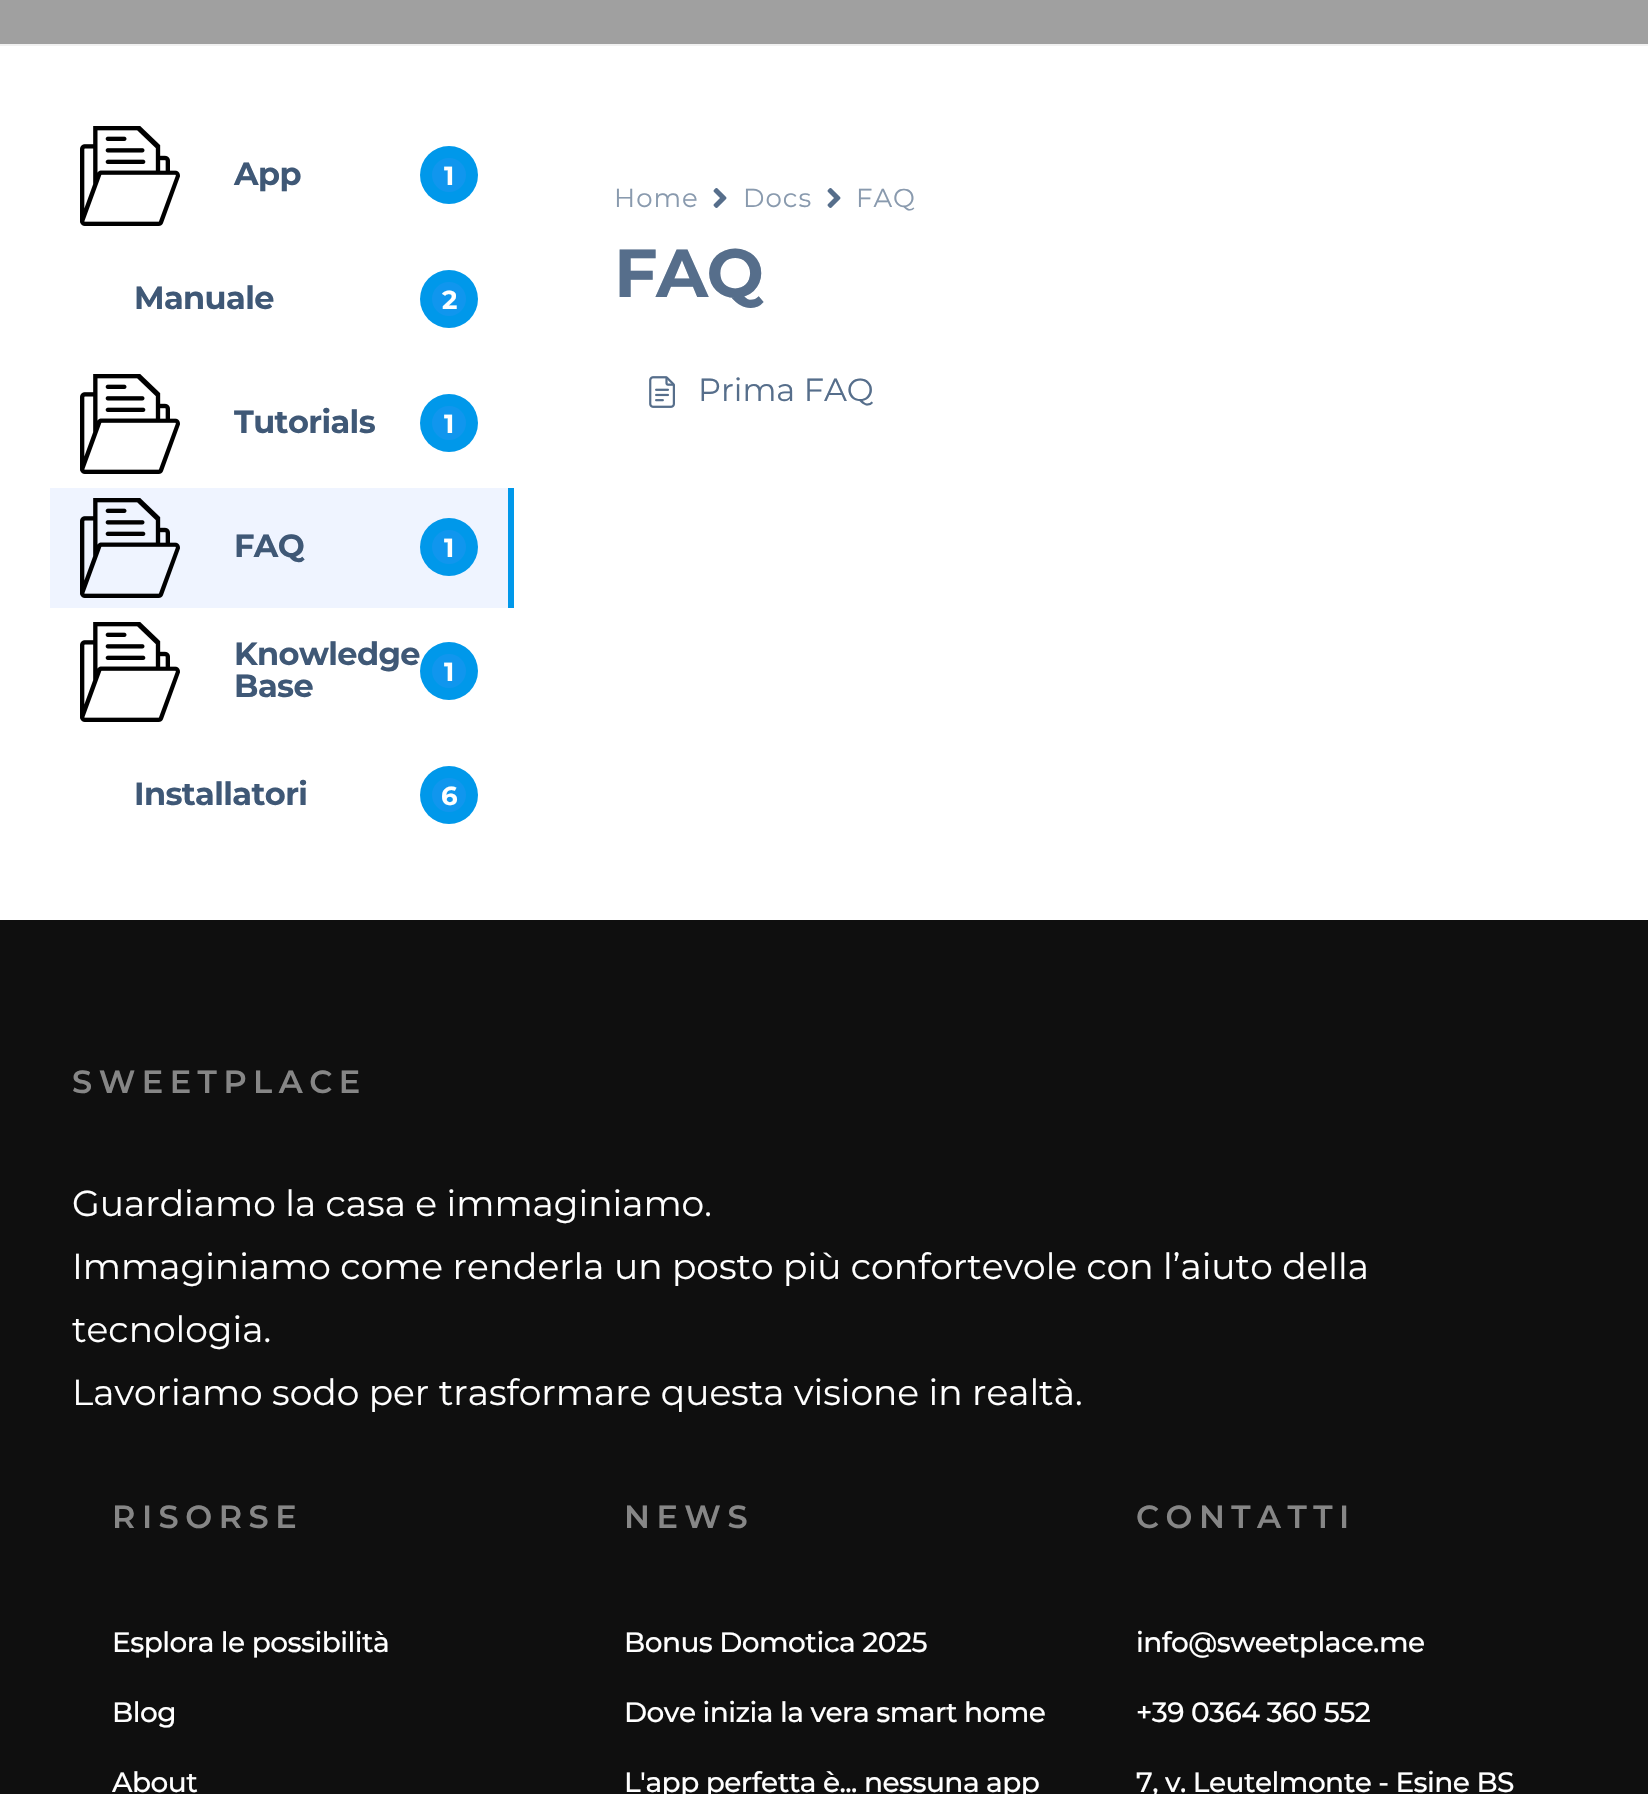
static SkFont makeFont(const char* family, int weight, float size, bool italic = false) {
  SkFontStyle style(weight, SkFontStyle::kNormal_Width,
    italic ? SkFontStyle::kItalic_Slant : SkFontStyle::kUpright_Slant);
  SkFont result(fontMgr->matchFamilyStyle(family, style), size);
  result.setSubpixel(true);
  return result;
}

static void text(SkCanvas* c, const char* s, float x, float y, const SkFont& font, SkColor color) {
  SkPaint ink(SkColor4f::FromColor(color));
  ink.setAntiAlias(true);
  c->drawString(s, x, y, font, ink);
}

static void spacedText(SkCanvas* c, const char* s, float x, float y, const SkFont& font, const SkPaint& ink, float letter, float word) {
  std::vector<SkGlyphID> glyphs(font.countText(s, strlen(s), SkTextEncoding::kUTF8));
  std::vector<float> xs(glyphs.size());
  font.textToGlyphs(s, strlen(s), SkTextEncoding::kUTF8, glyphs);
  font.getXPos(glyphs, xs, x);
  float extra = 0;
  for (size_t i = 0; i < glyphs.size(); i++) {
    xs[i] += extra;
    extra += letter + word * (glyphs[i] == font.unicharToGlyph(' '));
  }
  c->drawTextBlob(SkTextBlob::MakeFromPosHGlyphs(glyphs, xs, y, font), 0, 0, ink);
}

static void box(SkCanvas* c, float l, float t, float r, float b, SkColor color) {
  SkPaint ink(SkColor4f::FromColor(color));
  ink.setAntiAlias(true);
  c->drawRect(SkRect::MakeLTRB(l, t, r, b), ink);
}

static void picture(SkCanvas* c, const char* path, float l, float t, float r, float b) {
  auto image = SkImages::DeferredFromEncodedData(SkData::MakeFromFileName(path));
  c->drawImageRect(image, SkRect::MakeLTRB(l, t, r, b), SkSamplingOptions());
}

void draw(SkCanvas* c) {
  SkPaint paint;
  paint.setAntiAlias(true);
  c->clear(0xffffffff);
  box(c, 0, 0, 1648, 44, 0xffa0a0a0);
  box(c, 0, 44, 1648, 46, 0xfff1f1f1);
  picture(c, "img_01.png", 80, 126, 180, 226);
  SkFont face1 = makeFont("Montserrat", 700, 32);
  paint.setColor(0xff3f5876);
  spacedText(c, "App", 234, 185, face1, paint, -0.6f, 0);
  paint.setColor(0xff0098ea);
  c->drawCircle(449, 175, 29, paint);
  paint.setColor(0xff1096ee);
  c->drawCircle(449, 175, 17, paint);
  SkFont face2 = makeFont("Montserrat", 700, 26);
  text(c, "1", 444, 185, face2, 0xffffffff);
  paint.setColor(0xff3f5876);
  spacedText(c, "Manuale", 134, 309, face1, paint, -0.6f, 0);
  paint.setColor(0xff0098ea);
  c->drawCircle(449, 299, 29, paint);
  paint.setColor(0xff1096ee);
  c->drawCircle(449, 299, 17, paint);
  text(c, "2", 442, 309, face2, 0xffffffff);
  picture(c, "img_01.png", 80, 374, 180, 474);
  paint.setColor(0xff3f5876);
  spacedText(c, "Tutorials", 234, 433, face1, paint, -0.6f, 0);
  paint.setColor(0xff0098ea);
  c->drawCircle(449, 423, 29, paint);
  paint.setColor(0xff1096ee);
  c->drawCircle(449, 423, 17, paint);
  text(c, "1", 444, 433, face2, 0xffffffff);
  box(c, 50, 488, 508, 608, 0xffeff4ff);
  box(c, 508, 488, 514, 608, 0xff0098ea);
  picture(c, "img_02.png", 80, 498, 180, 598);
  paint.setColor(0xff3f5876);
  spacedText(c, "FAQ", 234, 557, face1, paint, -0.6f, 0);
  paint.setColor(0xff0098ea);
  c->drawCircle(449, 547, 29, paint);
  paint.setColor(0xff1096ee);
  c->drawCircle(449, 547, 17, paint);
  text(c, "1", 444, 557, face2, 0xffffffff);
  picture(c, "img_01.png", 80, 622, 180, 722);
  paint.setColor(0xff3f5876);
  spacedText(c, "Knowledge", 234, 665, face1, paint, -0.6f, 0);
  spacedText(c, "Base", 234, 697, face1, paint, -0.6f, 0);
  paint.setColor(0xff0098ea);
  c->drawCircle(449, 671, 29, paint);
  paint.setColor(0xff1096ee);
  c->drawCircle(449, 671, 17, paint);
  text(c, "1", 444, 681, face2, 0xffffffff);
  paint.setColor(0xff3f5876);
  spacedText(c, "Installatori", 134, 805, face1, paint, -0.6f, 0);
  paint.setColor(0xff0098ea);
  c->drawCircle(449, 795, 29, paint);
  paint.setColor(0xff1096ee);
  c->drawCircle(449, 795, 17, paint);
  text(c, "6", 441, 805, face2, 0xffffffff);
  SkFont face3 = makeFont("Montserrat", 400, 26);
  paint.setColor(0xff899aae);
  spacedText(c, "Home", 614, 207, face3, paint, 1, 0);
  picture(c, "img_03.png", 713, 188, 727, 208);
  spacedText(c, "Docs", 743, 207, face3, paint, 1, 0);
  picture(c, "img_03.png", 827, 188, 841, 208);
  spacedText(c, "FAQ", 856, 207, face3, paint, 1, 0);
  SkFont face4 = makeFont("Montserrat", 700, 68);
  paint.setColor(0xff566e8b);
  spacedText(c, "FAQ", 614, 297, face4, paint, -1.5f, 0);
  picture(c, "img_04.png", 649, 376, 675, 408);
  SkFont face5 = makeFont("Montserrat", 400, 32);
  text(c, "Prima FAQ", 698, 401, face5, 0xff566e8b);
  box(c, 0, 920, 1648, 1794, 0xff0f0f0f);
  SkFont face6 = makeFont("Montserrat", 600, 32);
  paint.setColor(0xff868686);
  spacedText(c, "SWEETPLACE", 72, 1093, face6, paint, 6.5f, 0);
  SkFont face7 = makeFont("Montserrat", 400, 36);
  text(c, "Guardiamo la casa e immaginiamo.", 72, 1216, face7, 0xffffffff);
  text(c, "Immaginiamo come renderla un posto più confortevole con l’aiuto della", 72, 1279, face7, 0xffffffff);
  text(c, "tecnologia.", 72, 1342, face7, 0xffffffff);
  text(c, "Lavoriamo sodo per trasformare questa visione in realtà.", 72, 1405, face7, 0xffffffff);
  spacedText(c, "RISORSE", 112, 1528, face6, paint, 6.5f, 0);
  SkFont face8 = makeFont("Montserrat", 500, 28);
  paint.setColor(0xffffffff);
  spacedText(c, "Esplora le possibilità", 112, 1652, face8, paint, -0.55f, 0);
  spacedText(c, "Blog", 112, 1722, face8, paint, -0.55f, 0);
  spacedText(c, "About", 112, 1792, face8, paint, -0.55f, 0);
  paint.setColor(0xff868686);
  spacedText(c, "NEWS", 624, 1528, face6, paint, 6.5f, 0);
  paint.setColor(0xffffffff);
  spacedText(c, "Bonus Domotica 2025", 624, 1652, face8, paint, -0.55f, 0);
  spacedText(c, "Dove inizia la vera smart home", 624, 1722, face8, paint, -0.55f, 0);
  spacedText(c, "L'app perfetta è... nessuna app", 624, 1792, face8, paint, -0.55f, 0);
  paint.setColor(0xff868686);
  spacedText(c, "CONTATTI", 1136, 1528, face6, paint, 6.5f, 0);
  paint.setColor(0xffffffff);
  spacedText(c, "info@sweetplace.me", 1136, 1652, face8, paint, -0.55f, 0);
  spacedText(c, "+39 0364 360 552", 1136, 1722, face8, paint, -0.55f, 0);
  spacedText(c, "7, v. Leutelmonte - Esine BS", 1136, 1792, face8, paint, -0.55f, 0);
}
